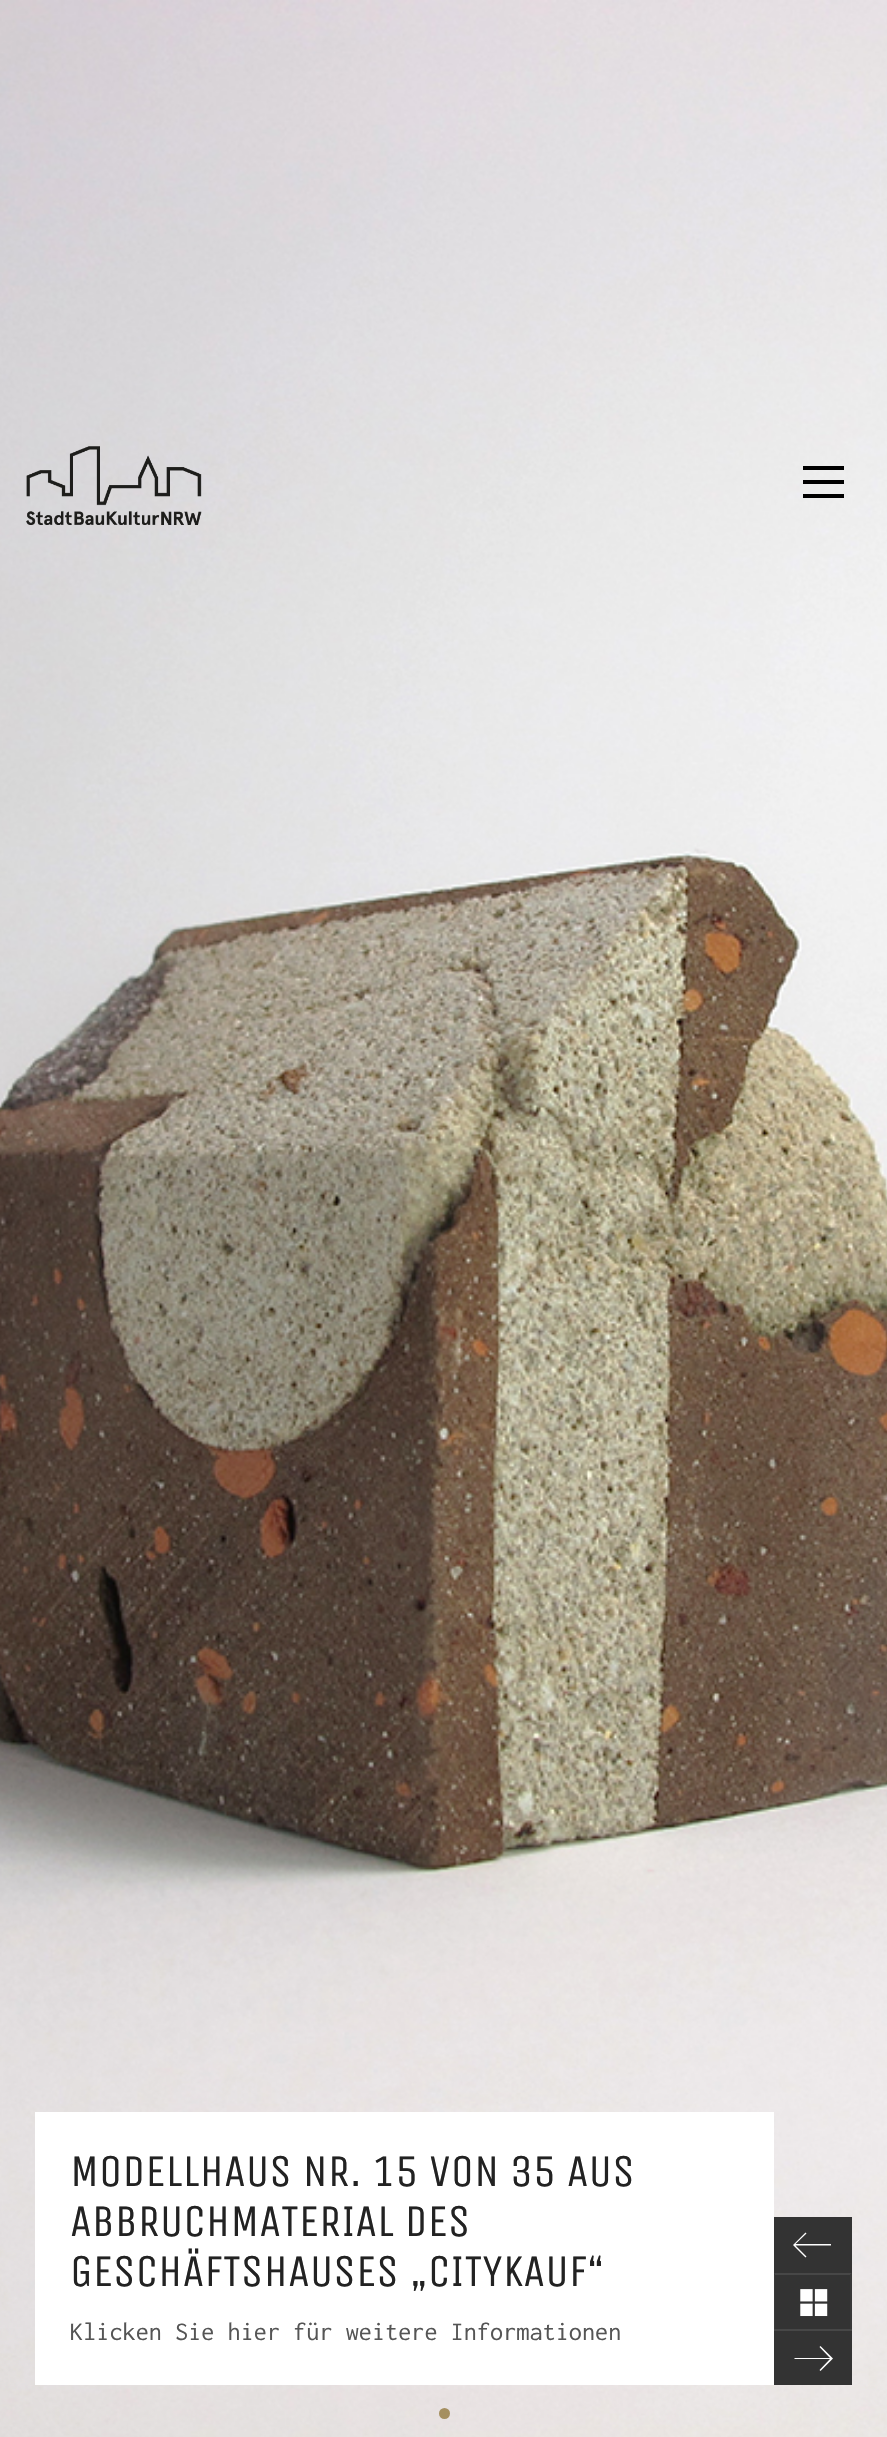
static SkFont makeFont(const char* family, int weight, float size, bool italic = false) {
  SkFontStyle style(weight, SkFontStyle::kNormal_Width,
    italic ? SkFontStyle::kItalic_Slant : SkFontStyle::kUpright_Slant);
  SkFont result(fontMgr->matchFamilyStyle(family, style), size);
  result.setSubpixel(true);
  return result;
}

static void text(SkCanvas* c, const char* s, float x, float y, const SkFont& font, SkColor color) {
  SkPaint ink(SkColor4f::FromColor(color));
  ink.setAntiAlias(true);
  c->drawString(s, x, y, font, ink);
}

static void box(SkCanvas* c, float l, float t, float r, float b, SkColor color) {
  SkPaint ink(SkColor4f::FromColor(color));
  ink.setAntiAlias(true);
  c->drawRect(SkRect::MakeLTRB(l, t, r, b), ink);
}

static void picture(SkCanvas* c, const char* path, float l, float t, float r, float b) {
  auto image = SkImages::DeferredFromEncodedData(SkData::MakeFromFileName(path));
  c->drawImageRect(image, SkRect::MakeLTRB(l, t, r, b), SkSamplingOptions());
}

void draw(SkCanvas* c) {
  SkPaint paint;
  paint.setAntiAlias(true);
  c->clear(0xffffffff);
  picture(c, "img_01.png", 0, 0, 887, 2437);
  picture(c, "img_02.png", 26, 446, 202, 525);
  box(c, 803, 480, 844, 484, 0xff000000);
  box(c, 803, 466, 844, 470, 0xff000000);
  box(c, 803, 494, 844, 498, 0xff000000);
  box(c, 35, 2112, 774, 2385, 0xffffffff);
  SkFont face1 = makeFont("Unica One", 400, 45.5f);
  text(c, "MODELLHAUS NR. 15 VON 35 AUS", 70, 2186, face1, 0xff222222);
  text(c, "ABBRUCHMATERIAL DES", 70, 2236, face1, 0xff222222);
  text(c, "GESCHÄFTSHAUSES „CITYKAUF“", 70, 2286, face1, 0xff222222);
  SkFont face2 = makeFont("Inconsolata", 400, 26.25f);
  text(c, "Klicken Sie hier für weitere Informationen", 70, 2340, face2, 0xff555555);
  box(c, 774, 2217, 852, 2329, 0xff333333);
  paint.setColor(0xffffffff);
  c->drawPath(SkPathBuilder().moveTo(805.5f, 2232.5f).lineTo(806.5f, 2233.5f).lineTo(795.5f, 2244).lineTo(831, 2244).lineTo(831, 2245.5f).lineTo(795.5f, 2245.5f).lineTo(806.5f, 2256.5f).lineTo(805.5f, 2257.5f).lineTo(793, 2245).close().detach(), paint);
  paint.setColor(0xff474747);
  c->drawPath(SkPathBuilder().moveTo(774, 2273).lineTo(852, 2273).lineTo(850, 2275).lineTo(775, 2275).close().detach(), paint);
  paint.setColor(0xff393939);
  c->drawPath(SkPathBuilder().moveTo(852, 2273).lineTo(852, 2329).lineTo(850, 2329).lineTo(850, 2275).close().detach(), paint);
  c->drawPath(SkPathBuilder().moveTo(774, 2329).lineTo(774, 2273).lineTo(775, 2275).lineTo(775, 2329).close().detach(), paint);
  picture(c, "img_03.png", 800, 2289, 828, 2317);
  box(c, 774, 2331, 852, 2385, 0xff333333);
  box(c, 774, 2329, 852, 2331, 0xff474747);
  paint.setColor(0xffffffff);
  c->drawPath(SkPathBuilder().moveTo(820.5f, 2346).lineTo(819.5f, 2347).lineTo(830, 2358).lineTo(794.5f, 2358).lineTo(794.5f, 2359).lineTo(830, 2359).lineTo(819.5f, 2370).lineTo(820.5f, 2371).lineTo(833, 2358.5f).close().detach(), paint);
  paint.setColor(0xffa58f60);
  c->drawCircle(444.5f, 2413.5f, 5.5f, paint);
}
